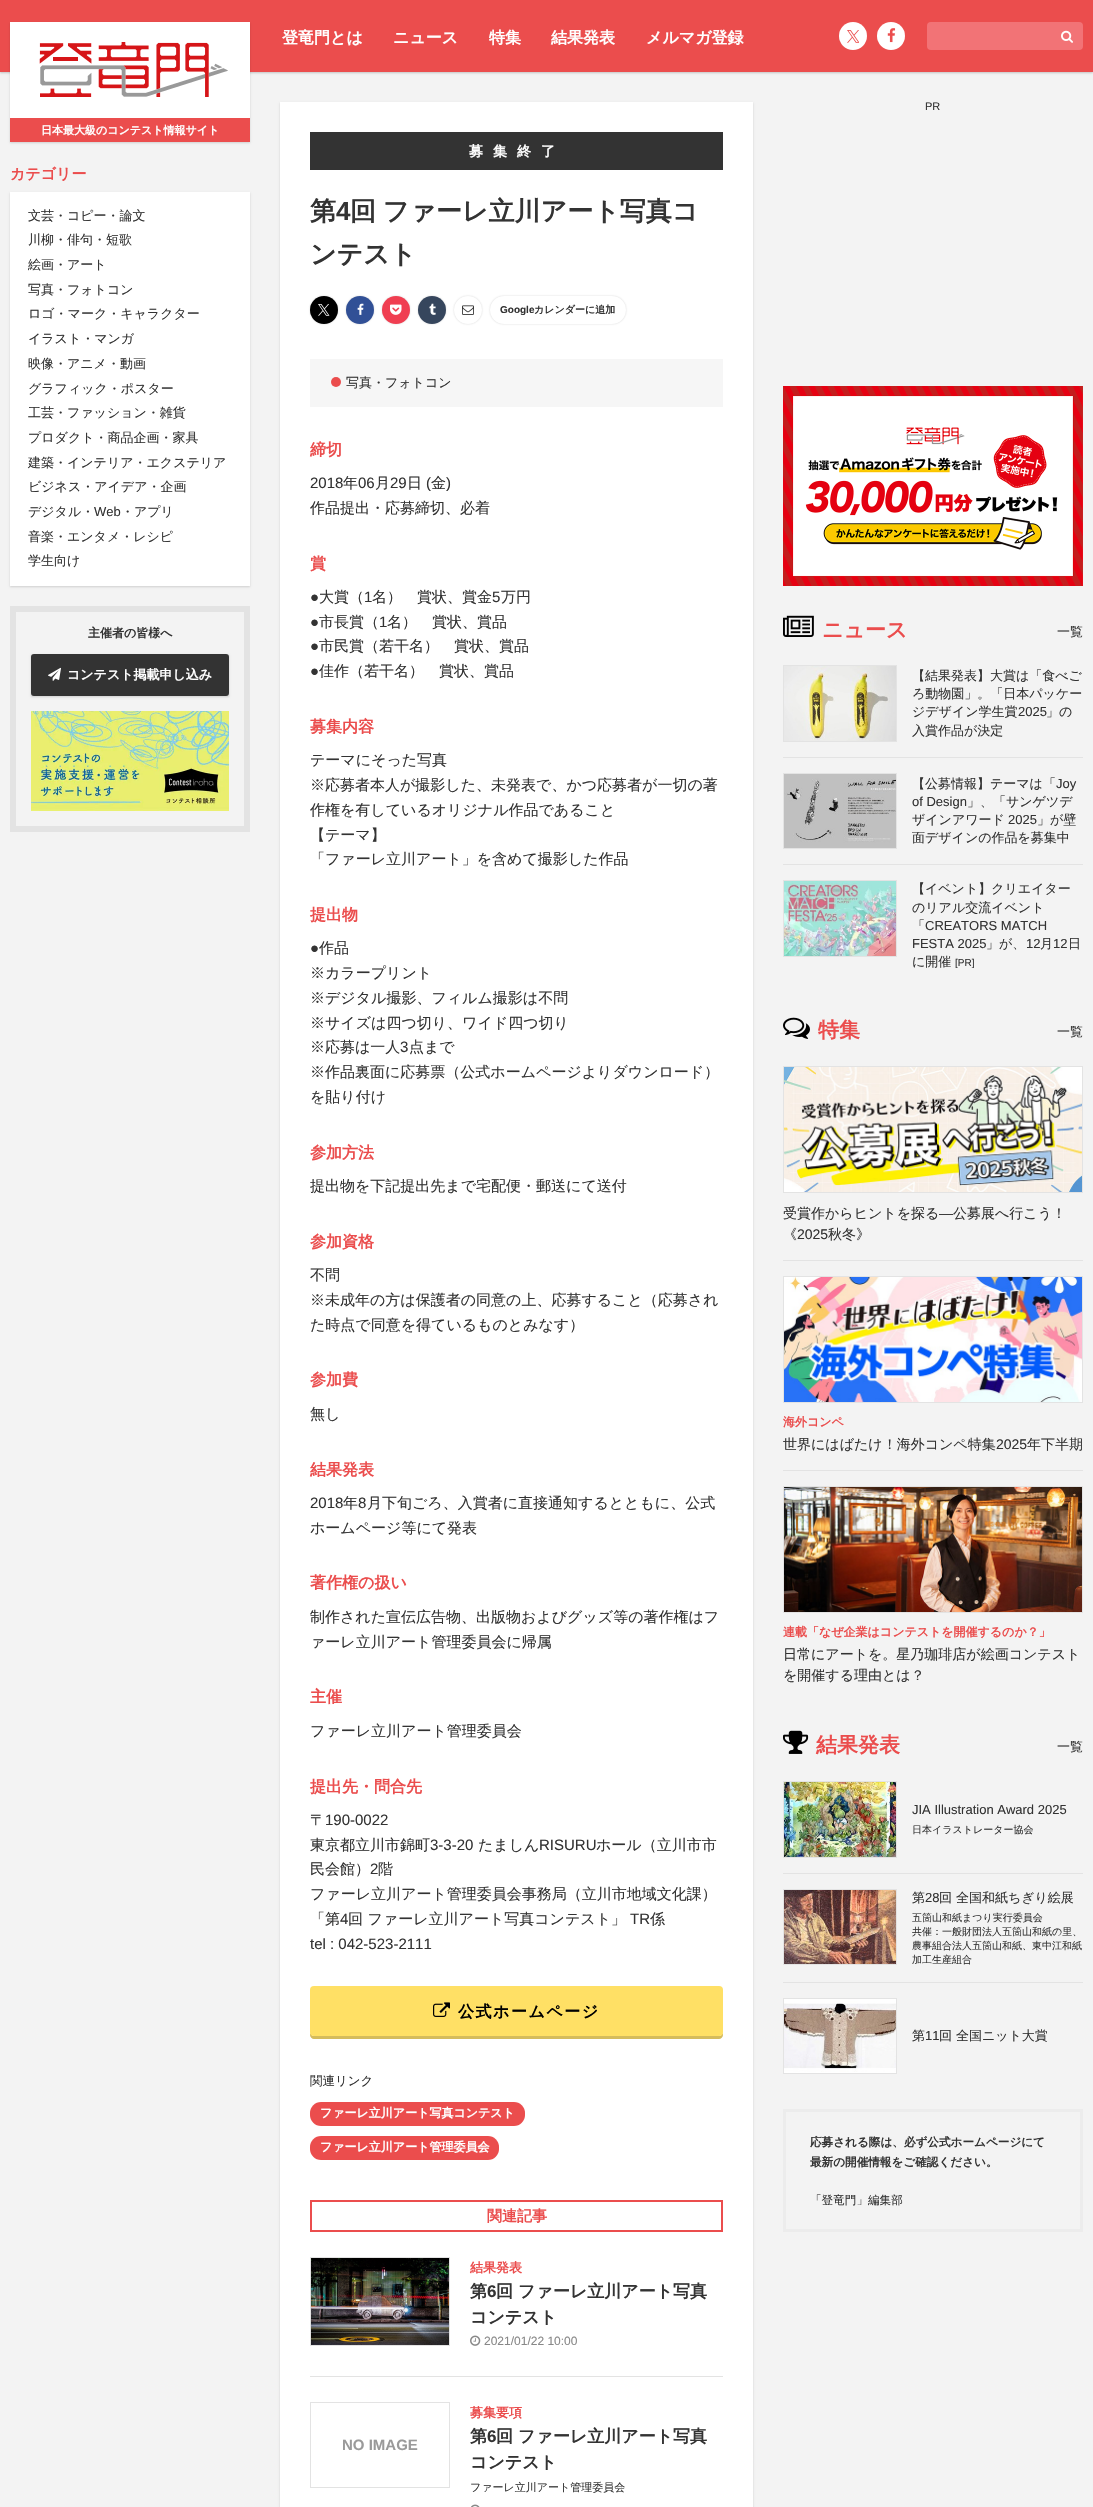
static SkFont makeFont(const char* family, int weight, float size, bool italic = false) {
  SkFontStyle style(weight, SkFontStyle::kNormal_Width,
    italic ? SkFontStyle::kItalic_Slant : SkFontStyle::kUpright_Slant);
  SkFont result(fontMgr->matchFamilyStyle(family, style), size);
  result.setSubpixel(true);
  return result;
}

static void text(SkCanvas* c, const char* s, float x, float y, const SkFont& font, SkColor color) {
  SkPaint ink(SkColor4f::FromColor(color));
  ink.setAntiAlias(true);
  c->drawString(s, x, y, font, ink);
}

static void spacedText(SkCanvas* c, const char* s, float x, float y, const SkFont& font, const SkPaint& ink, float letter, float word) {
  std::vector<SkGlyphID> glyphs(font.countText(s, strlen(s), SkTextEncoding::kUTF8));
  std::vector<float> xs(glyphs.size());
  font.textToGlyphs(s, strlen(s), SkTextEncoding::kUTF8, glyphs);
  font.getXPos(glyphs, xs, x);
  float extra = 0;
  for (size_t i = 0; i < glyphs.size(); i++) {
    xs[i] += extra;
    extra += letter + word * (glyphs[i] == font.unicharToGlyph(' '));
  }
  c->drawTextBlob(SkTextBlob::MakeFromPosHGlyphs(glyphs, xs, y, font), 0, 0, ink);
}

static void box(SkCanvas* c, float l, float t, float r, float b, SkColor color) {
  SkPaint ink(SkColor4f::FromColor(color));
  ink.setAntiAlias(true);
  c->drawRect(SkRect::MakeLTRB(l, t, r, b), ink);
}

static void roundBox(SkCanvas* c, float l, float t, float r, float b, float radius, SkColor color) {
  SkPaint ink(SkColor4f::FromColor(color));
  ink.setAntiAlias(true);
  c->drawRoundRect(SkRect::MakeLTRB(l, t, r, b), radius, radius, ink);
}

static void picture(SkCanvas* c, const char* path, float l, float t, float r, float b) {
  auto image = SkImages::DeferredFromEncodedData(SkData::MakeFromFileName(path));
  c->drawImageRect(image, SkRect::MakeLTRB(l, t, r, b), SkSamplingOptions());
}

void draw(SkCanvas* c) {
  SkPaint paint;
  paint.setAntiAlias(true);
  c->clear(0xfff3f3f3);
  paint.setColor(0x33000000);
  paint.setMaskFilter(SkMaskFilter::MakeBlur(kNormal_SkBlurStyle, 1));
  c->drawRect(SkRect::MakeLTRB(0, 1, 1093, 73), paint);
  paint.setMaskFilter(nullptr);
  box(c, 0, 0, 1093, 72, 0xffeb4d4d);
  SkFont face1 = makeFont("WenQuanYi Zen Hei", 700, 16);
  text(c, "登竜門とは", 282, 43, face1, 0xffffffff);
  text(c, "ニュース", 393, 43, face1, 0xffffffff);
  text(c, "特集", 489, 43, face1, 0xffffffff);
  text(c, "結果発表", 551, 43, face1, 0xffffffff);
  text(c, "メルマガ登録", 646, 43, face1, 0xffffffff);
  paint.setColor(0xffffffff);
  c->drawCircle(853, 36, 14, paint);
  picture(c, "img_01.png", 847, 30, 859, 43);
  c->drawCircle(891, 36, 14, paint);
  picture(c, "img_02.png", 887, 28, 896, 43);
  roundBox(c, 927, 22, 1083, 50, 4, 0xfff27376);
  picture(c, "img_03.png", 1061, 30, 1073, 43);
  paint.setColor(0x26000000);
  paint.setMaskFilter(SkMaskFilter::MakeBlur(kNormal_SkBlurStyle, 1));
  c->drawRect(SkRect::MakeLTRB(10, 23, 250, 143), paint);
  paint.setMaskFilter(nullptr);
  box(c, 10, 22, 250, 118, 0xffffffff);
  picture(c, "img_04.png", 39, 42, 228, 97);
  box(c, 10, 118, 250, 142, 0xffeb4d4d);
  SkFont face2 = makeFont("WenQuanYi Zen Hei", 700, 11);
  text(c, "日本最大級のコンテスト情報サイト", 41, 134, face2, 0xffffffff);
  SkFont face3 = makeFont("WenQuanYi Zen Hei", 700, 15);
  text(c, "カテゴリー", 10, 179, face3, 0xffeb4d4d);
  paint.setMaskFilter(SkMaskFilter::MakeBlur(kNormal_SkBlurStyle, 1));
  c->drawRect(SkRect::MakeLTRB(10, 193, 250, 587), paint);
  paint.setMaskFilter(nullptr);
  box(c, 10, 192, 250, 586, 0xffffffff);
  SkFont face4 = makeFont("WenQuanYi Zen Hei", 500, 13);
  text(c, "文芸・コピー・論文", 28, 220, face4, 0xff333333);
  text(c, "川柳・俳句・短歌", 28, 244, face4, 0xff333333);
  text(c, "絵画・アート", 28, 269, face4, 0xff333333);
  text(c, "写真・フォトコン", 28, 294, face4, 0xff333333);
  text(c, "ロゴ・マーク・キャラクター", 28, 318, face4, 0xff333333);
  text(c, "イラスト・マンガ", 28, 343, face4, 0xff333333);
  text(c, "映像・アニメ・動画", 28, 368, face4, 0xff333333);
  text(c, "グラフィック・ポスター", 28, 393, face4, 0xff333333);
  text(c, "工芸・ファッション・雑貨", 28, 417, face4, 0xff333333);
  text(c, "プロダクト・商品企画・家具", 28, 442, face4, 0xff333333);
  text(c, "建築・インテリア・エクステリア", 28, 467, face4, 0xff333333);
  text(c, "ビジネス・アイデア・企画", 28, 491, face4, 0xff333333);
  text(c, "デジタル・", 28, 516, face4, 0xff333333);
  SkFont face5 = makeFont("Liberation Sans", 400, 13);
  text(c, "Web", 94, 516, face5, 0xff333333);
  text(c, "・アプリ", 121, 516, face4, 0xff333333);
  text(c, "音楽・エンタメ・レシピ", 28, 541, face4, 0xff333333);
  text(c, "学生向け", 28, 565, face4, 0xff333333);
  paint.setStyle(SkPaint::kStroke_Style);
  paint.setStrokeWidth(6);
  paint.setColor(0xffe3e3e3);
  c->drawRect(SkRect::MakeLTRB(13, 609, 247, 829), paint);
  SkFont face6 = makeFont("WenQuanYi Zen Hei", 700, 12);
  text(c, "主催者の皆様へ", 88, 637, face6, 0xff333333);
  paint.setStyle(SkPaint::kFill_Style);
  paint.setColor(0x26000000);
  paint.setMaskFilter(SkMaskFilter::MakeBlur(kNormal_SkBlurStyle, 1));
  c->drawRect(SkRect::MakeLTRB(31, 655, 229, 697), paint);
  paint.setMaskFilter(nullptr);
  paint.setColor(0xff333333);
  c->drawRoundRect(SkRect::MakeLTRB(32, 655, 228, 695), 2, 2, paint);
  paint.setStyle(SkPaint::kStroke_Style);
  paint.setStrokeWidth(2);
  c->drawRoundRect(SkRect::MakeLTRB(32, 655, 228, 695), 2, 2, paint);
  picture(c, "img_05.png", 48, 667, 61, 681);
  SkFont face7 = makeFont("WenQuanYi Zen Hei", 700, 13);
  text(c, "コンテスト掲載申し込み", 67, 679, face7, 0xffffffff);
  picture(c, "img_06.png", 31, 711, 229, 811);
  paint.setStyle(SkPaint::kFill_Style);
  paint.setColor(0x26000000);
  paint.setMaskFilter(SkMaskFilter::MakeBlur(kNormal_SkBlurStyle, 1));
  c->drawRect(SkRect::MakeLTRB(280, 103, 753, 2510), paint);
  paint.setMaskFilter(nullptr);
  box(c, 280, 102, 753, 2507, 0xffffffff);
  box(c, 310, 132, 723, 170, 0xff333333);
  SkFont face8 = makeFont("WenQuanYi Zen Hei", 700, 14);
  paint.setColor(0xffffffff);
  spacedText(c, "募集終了", 469, 156, face8, paint, 10, 0);
  SkFont face9 = makeFont("WenQuanYi Zen Hei", 700, 26);
  text(c, "第", 310, 220, face9, 0xff333333);
  SkFont face10 = makeFont("Liberation Sans", 700, 26);
  text(c, "4", 336, 220, face10, 0xff333333);
  paint.setColor(0xff333333);
  spacedText(c, "回 ファーレ立川アート写真コ", 350, 220, face9, paint, 0, -1);
  text(c, "ンテスト", 310, 263, face9, 0xff333333);
  paint.setColor(0x66969696);
  paint.setMaskFilter(SkMaskFilter::MakeBlur(kNormal_SkBlurStyle, 1));
  c->drawRoundRect(SkRect::MakeLTRB(310, 296, 338, 324), 14, 14, paint);
  paint.setMaskFilter(nullptr);
  paint.setColor(0xff000000);
  c->drawCircle(324, 310, 14, paint);
  picture(c, "img_07.png", 318, 304, 330, 316);
  paint.setColor(0x66969696);
  paint.setMaskFilter(SkMaskFilter::MakeBlur(kNormal_SkBlurStyle, 1));
  c->drawRoundRect(SkRect::MakeLTRB(346, 296, 374, 324), 14, 14, paint);
  paint.setMaskFilter(nullptr);
  paint.setColor(0xff315096);
  c->drawCircle(360, 310, 14, paint);
  picture(c, "img_08.png", 357, 303, 364, 315);
  paint.setColor(0x66969696);
  paint.setMaskFilter(SkMaskFilter::MakeBlur(kNormal_SkBlurStyle, 1));
  c->drawRoundRect(SkRect::MakeLTRB(382, 296, 410, 324), 14, 14, paint);
  paint.setMaskFilter(nullptr);
  paint.setColor(0xfff03e51);
  c->drawCircle(396, 310, 14, paint);
  picture(c, "img_09.png", 390, 304, 402, 315);
  paint.setColor(0x66969696);
  paint.setMaskFilter(SkMaskFilter::MakeBlur(kNormal_SkBlurStyle, 1));
  c->drawRoundRect(SkRect::MakeLTRB(418, 296, 446, 324), 14, 14, paint);
  paint.setMaskFilter(nullptr);
  paint.setColor(0xff36465d);
  c->drawCircle(432, 310, 14, paint);
  picture(c, "img_10.png", 429, 303, 436, 315);
  paint.setColor(0x66969696);
  paint.setMaskFilter(SkMaskFilter::MakeBlur(kNormal_SkBlurStyle, 1));
  c->drawRoundRect(SkRect::MakeLTRB(454, 296, 482, 324), 14, 14, paint);
  paint.setMaskFilter(nullptr);
  paint.setColor(0xffffffff);
  c->drawCircle(468, 310, 14, paint);
  picture(c, "img_11.png", 462, 305, 474, 315);
  paint.setColor(0x66969696);
  paint.setMaskFilter(SkMaskFilter::MakeBlur(kNormal_SkBlurStyle, 1));
  c->drawRoundRect(SkRect::MakeLTRB(490, 296, 626, 324), 14, 14, paint);
  paint.setMaskFilter(nullptr);
  roundBox(c, 490, 296, 626, 324, 14, 0xffffffff);
  SkFont face11 = makeFont("Liberation Sans", 700, 10);
  text(c, "Google", 500, 313, face11, 0xff333333);
  SkFont face12 = makeFont("WenQuanYi Zen Hei", 700, 10);
  text(c, "カレンダーに追加", 534, 313, face12, 0xff333333);
  box(c, 310, 359, 723, 407, 0xfff6f6f6);
  paint.setColor(0xffeb4d4d);
  c->drawCircle(336, 382, 5, paint);
  text(c, "写真・フォトコン", 346, 387, face4, 0xff333333);
  text(c, "締切", 310, 455, face1, 0xffeb4d4d);
  SkFont face13 = makeFont("Liberation Sans", 400, 15);
  text(c, "2018", 310, 488, face13, 0xff333333);
  SkFont face14 = makeFont("WenQuanYi Zen Hei", 500, 15);
  text(c, "年", 343, 488, face14, 0xff333333);
  text(c, "06", 358, 488, face13, 0xff333333);
  text(c, "月", 375, 488, face14, 0xff333333);
  text(c, "29", 390, 488, face13, 0xff333333);
  text(c, "日", 407, 488, face14, 0xff333333);
  text(c, "(", 426, 488, face13, 0xff333333);
  text(c, "金", 431, 488, face14, 0xff333333);
  text(c, ")", 446, 488, face13, 0xff333333);
  text(c, "作品提出・応募締切、必着", 310, 513, face14, 0xff333333);
  text(c, "賞", 310, 569, face1, 0xffeb4d4d);
  text(c, "●", 310, 602, face13, 0xff333333);
  text(c, "大賞（", 319, 602, face14, 0xff333333);
  text(c, "1", 364, 602, face13, 0xff333333);
  text(c, "名）　賞状、賞金", 372, 602, face14, 0xff333333);
  text(c, "5", 492, 602, face13, 0xff333333);
  text(c, "万円", 501, 602, face14, 0xff333333);
  text(c, "●", 310, 627, face13, 0xff333333);
  text(c, "市長賞（", 319, 627, face14, 0xff333333);
  text(c, "1", 379, 627, face13, 0xff333333);
  text(c, "名）　賞状、賞品", 387, 627, face14, 0xff333333);
  text(c, "●", 310, 651, face13, 0xff333333);
  text(c, "市民賞（若干名）　賞状、賞品", 319, 651, face14, 0xff333333);
  text(c, "●", 310, 676, face13, 0xff333333);
  text(c, "佳作（若干名）　賞状、賞品", 319, 676, face14, 0xff333333);
  text(c, "募集内容", 310, 732, face1, 0xffeb4d4d);
  text(c, "テーマにそった写真", 310, 765, face14, 0xff333333);
  text(c, "※応募者本人が撮影した、未発表で、かつ応募者が一切の著", 310, 790, face14, 0xff333333);
  text(c, "作権を有しているオリジナル作品であること", 310, 815, face14, 0xff333333);
  text(c, "【テーマ】", 310, 840, face14, 0xff333333);
  text(c, "「ファーレ立川アート」を含めて撮影した作品", 310, 864, face14, 0xff333333);
  text(c, "提出物", 310, 920, face1, 0xffeb4d4d);
  text(c, "●", 310, 953, face13, 0xff333333);
  text(c, "作品", 319, 953, face14, 0xff333333);
  text(c, "※カラープリント", 310, 978, face14, 0xff333333);
  text(c, "※デジタル撮影、フィルム撮影は不問", 310, 1003, face14, 0xff333333);
  text(c, "※サイズは四つ切り、ワイド四つ切り", 310, 1028, face14, 0xff333333);
  text(c, "※応募は一人", 310, 1052, face14, 0xff333333);
  text(c, "3", 400, 1052, face13, 0xff333333);
  text(c, "点まで", 409, 1052, face14, 0xff333333);
  text(c, "※作品裏面に応募票（公式ホームページよりダウンロード）", 310, 1077, face14, 0xff333333);
  text(c, "を貼り付け", 310, 1102, face14, 0xff333333);
  text(c, "参加方法", 310, 1158, face1, 0xffeb4d4d);
  text(c, "提出物を下記提出先まで宅配便・郵送にて送付", 310, 1191, face14, 0xff333333);
  text(c, "参加資格", 310, 1247, face1, 0xffeb4d4d);
  text(c, "不問", 310, 1280, face14, 0xff333333);
  text(c, "※未成年の方は保護者の同意の上、応募すること（応募され", 310, 1305, face14, 0xff333333);
  text(c, "た時点で同意を得ているものとみなす）", 310, 1330, face14, 0xff333333);
  text(c, "参加費", 310, 1385, face1, 0xffeb4d4d);
  text(c, "無し", 310, 1419, face14, 0xff333333);
  text(c, "結果発表", 310, 1475, face1, 0xffeb4d4d);
  text(c, "2018", 310, 1508, face13, 0xff333333);
  text(c, "年", 343, 1508, face14, 0xff333333);
  text(c, "8", 358, 1508, face13, 0xff333333);
  text(c, "月下旬ごろ、入賞者に直接通知するとともに、公式", 367, 1508, face14, 0xff333333);
  text(c, "ホームページ等にて発表", 310, 1533, face14, 0xff333333);
  text(c, "著作権の扱い", 310, 1588, face1, 0xffeb4d4d);
  text(c, "制作された宣伝広告物、出版物およびグッズ等の著作権はフ", 310, 1622, face14, 0xff333333);
  text(c, "ァーレ立川アート管理委員会に帰属", 310, 1647, face14, 0xff333333);
  text(c, "主催", 310, 1702, face1, 0xffeb4d4d);
  text(c, "ファーレ立川アート管理委員会", 310, 1736, face14, 0xff333333);
  text(c, "提出先・問合先", 310, 1792, face1, 0xffeb4d4d);
  text(c, "〒", 310, 1825, face14, 0xff333333);
  text(c, "190-0022", 325, 1825, face13, 0xff333333);
  text(c, "東京都立川市錦町", 310, 1850, face14, 0xff333333);
  text(c, "3-3-20", 430, 1850, face13, 0xff333333);
  text(c, "たましん", 478, 1850, face14, 0xff333333);
  text(c, "RISURU", 539, 1850, face13, 0xff333333);
  text(c, "ホール（立川市市", 596, 1850, face14, 0xff333333);
  text(c, "民会館）", 310, 1874, face14, 0xff333333);
  text(c, "2", 370, 1874, face13, 0xff333333);
  text(c, "階", 378, 1874, face14, 0xff333333);
  text(c, "ファーレ立川アート管理委員会事務局（立川市地域文化課）", 310, 1899, face14, 0xff333333);
  text(c, "「第", 310, 1924, face14, 0xff333333);
  text(c, "4", 340, 1924, face13, 0xff333333);
  text(c, "回 ファーレ立川アート写真コンテスト」", 348, 1924, face14, 0xff333333);
  text(c, "TR", 630, 1924, face13, 0xff333333);
  text(c, "係", 650, 1924, face14, 0xff333333);
  text(c, "tel : 042-523-2111", 310, 1949, face13, 0xff333333);
  paint.setColor(0xffd5bc5c);
  c->drawPath(SkPathBuilder().moveTo(310, 2032).lineTo(310, 2035).cubicTo(310, 2037, 312, 2039, 314, 2039).lineTo(719, 2039).cubicTo(721, 2039, 723, 2037, 723, 2035).lineTo(723, 2032).cubicTo(723, 2034, 721, 2036, 719, 2036).lineTo(314, 2036).cubicTo(312, 2036, 310, 2034, 310, 2032).close().detach(), paint);
  roundBox(c, 310, 1986, 723, 2036, 4, 0xffffe065);
  picture(c, "img_12.png", 433, 2002, 450, 2017);
  paint.setColor(0xff000000);
  spacedText(c, "公式ホームページ", 458, 2017, face1, paint, 1.5f, 0);
  SkFont face15 = makeFont("WenQuanYi Zen Hei", 500, 12.5f);
  text(c, "関連リンク", 310, 2085, face15, 0xff333333);
  roundBox(c, 310, 2102, 525, 2126, 11, 0xffeb4d4d);
  text(c, "ファーレ立川アート写真コンテスト", 320, 2117, face6, 0xffffffff);
  roundBox(c, 310, 2136, 499, 2160, 11, 0xffeb4d4d);
  text(c, "ファーレ立川アート管理委員会", 320, 2151, face6, 0xffffffff);
  paint.setStyle(SkPaint::kStroke_Style);
  paint.setColor(0xffeb4d4d);
  c->drawRect(SkRect::MakeLTRB(311, 2201, 722, 2231), paint);
  text(c, "関連記事", 487, 2221, face3, 0xffeb4d4d);
  box(c, 310, 2376, 723, 2377, 0xffe3e3e3);
  paint.setStrokeWidth(1);
  paint.setColor(0xffe3e3e3);
  c->drawRect(SkRect::MakeLTRB(310.5f, 2257.5f, 449.5f, 2345.5f), paint);
  picture(c, "img_13.png", 311, 2258, 449, 2345);
  text(c, "結果発表", 470, 2272, face7, 0xffeb4d4d);
  SkFont face16 = makeFont("WenQuanYi Zen Hei", 700, 17);
  text(c, "第", 470, 2297, face16, 0xff333333);
  SkFont face17 = makeFont("Liberation Sans", 700, 17);
  text(c, "6", 487, 2297, face17, 0xff333333);
  text(c, "回 ファーレ立川アート写真", 496, 2297, face16, 0xff333333);
  text(c, "コンテスト", 470, 2323, face16, 0xff333333);
  picture(c, "img_14.png", 470, 2335, 481, 2346);
  SkFont face18 = makeFont("Liberation Sans", 400, 12);
  text(c, "2021/01/22 10:00", 484, 2345, face18, 0xff888888);
  c->drawRect(SkRect::MakeLTRB(310.5f, 2402.5f, 449.5f, 2487.5f), paint);
  SkFont face19 = makeFont("Liberation Sans", 700, 15);
  text(c, "NO IMAGE", 342, 2450, face19, 0xff9a9a9a);
  text(c, "募集要項", 470, 2417, face7, 0xffeb4d4d);
  text(c, "第", 470, 2442, face16, 0xff333333);
  text(c, "6", 487, 2442, face17, 0xff333333);
  text(c, "回 ファーレ立川アート写真", 496, 2442, face16, 0xff333333);
  text(c, "コンテスト", 470, 2468, face16, 0xff333333);
  SkFont face20 = makeFont("WenQuanYi Zen Hei", 500, 11);
  text(c, "ファーレ立川アート管理委員会", 470, 2491, face20, 0xff333333);
  picture(c, "img_15.png", 471, 2504, 480, 2507);
  SkFont face21 = makeFont("Liberation Sans", 400, 11);
  text(c, "PR", 925, 110, face21, 0xff333333);
  picture(c, "img_16.png", 783, 386, 1083, 586);
  picture(c, "img_17.png", 783, 615, 814, 637);
  SkFont face22 = makeFont("WenQuanYi Zen Hei", 700, 21);
  text(c, "ニュース", 822, 637, face22, 0xffeb4d4d);
  text(c, "一覧", 1057, 636, face4, 0xff333333);
  box(c, 783, 757, 1083, 758, 0xffe3e3e3);
  c->drawRect(SkRect::MakeLTRB(783.5f, 665.5f, 896.5f, 741.5f), paint);
  picture(c, "img_18.png", 784, 666, 896, 741);
  text(c, "【結果発表】大賞は「食べご", 912, 680, face4, 0xff333333);
  text(c, "ろ動物園」。「日本パッケー", 912, 698, face4, 0xff333333);
  text(c, "ジデザイン学生賞", 912, 716, face4, 0xff333333);
  text(c, "2025", 1018, 716, face5, 0xff333333);
  text(c, "」の", 1046, 716, face4, 0xff333333);
  text(c, "入賞作品が決定", 912, 735, face4, 0xff333333);
  box(c, 783, 864, 1083, 865, 0xffe3e3e3);
  c->drawRect(SkRect::MakeLTRB(783.5f, 773.5f, 896.5f, 848.5f), paint);
  picture(c, "img_19.png", 784, 774, 896, 848);
  text(c, "【公募情報】テーマは「", 912, 788, face4, 0xff333333);
  text(c, "Joy", 1056, 788, face5, 0xff333333);
  text(c, "of Design", 912, 806, face5, 0xff333333);
  text(c, "」、「サンゲツデ", 967, 806, face4, 0xff333333);
  text(c, "ザインアワード", 912, 824, face4, 0xff333333);
  text(c, "2025", 1008, 824, face5, 0xff333333);
  text(c, "」が壁", 1037, 824, face4, 0xff333333);
  text(c, "面デザインの作品を募集中", 912, 842, face4, 0xff333333);
  c->drawRect(SkRect::MakeLTRB(783.5f, 880.5f, 896.5f, 956.5f), paint);
  picture(c, "img_20.png", 784, 881, 896, 956);
  text(c, "【イベント】クリエイター", 912, 893, face4, 0xff333333);
  text(c, "のリアル交流イベント", 912, 912, face4, 0xff333333);
  text(c, "「", 912, 930, face4, 0xff333333);
  text(c, "CREATORS MATCH", 925, 930, face5, 0xff333333);
  text(c, "FESTA 2025", 912, 948, face5, 0xff333333);
  text(c, "」が、", 986, 948, face4, 0xff333333);
  text(c, "12", 1026, 948, face5, 0xff333333);
  text(c, "月", 1040, 948, face4, 0xff333333);
  text(c, "12", 1053, 948, face5, 0xff333333);
  text(c, "日", 1068, 948, face4, 0xff333333);
  text(c, "に開催", 912, 966, face4, 0xff333333);
  SkFont face23 = makeFont("Liberation Sans", 400, 10);
  text(c, "[PR]", 955, 966, face23, 0xff333333);
  picture(c, "img_21.png", 783, 1017, 810, 1039);
  text(c, "特集", 818, 1037, face22, 0xffeb4d4d);
  text(c, "一覧", 1057, 1036, face4, 0xff333333);
  box(c, 783, 1260, 1083, 1261, 0xffe3e3e3);
  c->drawRect(SkRect::MakeLTRB(783.5f, 1066.5f, 1082.5f, 1192.5f), paint);
  picture(c, "img_22.png", 784, 1067, 1082, 1192);
  SkFont face24 = makeFont("WenQuanYi Zen Hei", 500, 14);
  text(c, "受賞作からヒントを探る", 783, 1218, face24, 0xff333333);
  SkFont face25 = makeFont("Liberation Sans", 400, 14);
  text(c, "―", 939, 1218, face25, 0xff333333);
  text(c, "公募展へ行こう！", 953, 1218, face24, 0xff333333);
  text(c, "《", 783, 1239, face24, 0xff333333);
  text(c, "2025", 797, 1239, face25, 0xff333333);
  text(c, "秋冬》", 828, 1239, face24, 0xff333333);
  box(c, 783, 1470, 1083, 1471, 0xffe3e3e3);
  c->drawRect(SkRect::MakeLTRB(783.5f, 1276.5f, 1082.5f, 1402.5f), paint);
  picture(c, "img_23.png", 784, 1277, 1082, 1402);
  text(c, "海外コンペ", 783, 1426, face6, 0xffeb4d4d);
  text(c, "世界にはばたけ！海外コンペ特集", 783, 1449, face24, 0xff333333);
  text(c, "2025", 996, 1449, face25, 0xff333333);
  text(c, "年下半期", 1027, 1449, face24, 0xff333333);
  c->drawRect(SkRect::MakeLTRB(783.5f, 1486.5f, 1082.5f, 1612.5f), paint);
  picture(c, "img_24.png", 784, 1487, 1082, 1612);
  text(c, "連載「なぜ企業はコンテストを開催するのか？」", 783, 1636, face6, 0xffeb4d4d);
  text(c, "日常にアートを。星乃珈琲店が絵画コンテスト", 783, 1659, face24, 0xff333333);
  text(c, "を開催する理由とは？", 783, 1680, face24, 0xff333333);
  picture(c, "img_25.png", 783, 1730, 809, 1754);
  text(c, "結果発表", 816, 1752, face22, 0xffeb4d4d);
  text(c, "一覧", 1057, 1751, face4, 0xff333333);
  box(c, 783, 1873, 1083, 1874, 0xffe3e3e3);
  c->drawRect(SkRect::MakeLTRB(783.5f, 1781.5f, 896.5f, 1857.5f), paint);
  picture(c, "img_26.png", 784, 1782, 896, 1857);
  text(c, "JIA Illustration Award 2025", 912, 1814, face5, 0xff333333);
  SkFont face26 = makeFont("WenQuanYi Zen Hei", 500, 10);
  text(c, "日本イラストレーター協会", 912, 1833, face26, 0xff333333);
  box(c, 783, 1982, 1083, 1983, 0xffe3e3e3);
  c->drawRect(SkRect::MakeLTRB(783.5f, 1889.5f, 896.5f, 1964.5f), paint);
  picture(c, "img_27.png", 784, 1890, 896, 1964);
  text(c, "第", 912, 1902, face4, 0xff333333);
  text(c, "28", 925, 1902, face5, 0xff333333);
  text(c, "回 全国和紙ちぎり絵展", 939, 1902, face4, 0xff333333);
  text(c, "五箇山和紙まつり実行委員会", 912, 1921, face26, 0xff333333);
  text(c, "共催：一般財団法人五箇山和紙の里、", 912, 1935, face26, 0xff333333);
  text(c, "農事組合法人五箇山和紙、東中江和紙", 912, 1949, face26, 0xff333333);
  text(c, "加工生産組合", 912, 1963, face26, 0xff333333);
  c->drawRect(SkRect::MakeLTRB(783.5f, 1998.5f, 896.5f, 2073.5f), paint);
  picture(c, "img_28.png", 784, 1999, 896, 2073);
  text(c, "第", 912, 2040, face4, 0xff333333);
  text(c, "11", 925, 2040, face5, 0xff333333);
  text(c, "回 全国ニット大賞", 939, 2040, face4, 0xff333333);
  paint.setStrokeWidth(3);
  paint.setColor(0xffececec);
  c->drawRect(SkRect::MakeLTRB(784.5f, 2110.5f, 1081.5f, 2230.5f), paint);
  SkFont face27 = makeFont("WenQuanYi Zen Hei", 700, 11.6f);
  text(c, "応募される際は、必ず公式ホームページにて", 810, 2146, face27, 0xff333333);
  text(c, "最新の開催情報をご確認ください。", 810, 2166, face27, 0xff333333);
  SkFont face28 = makeFont("WenQuanYi Zen Hei", 500, 11.6f);
  text(c, "「登竜門」編集部", 810, 2204, face28, 0xff333333);
}
